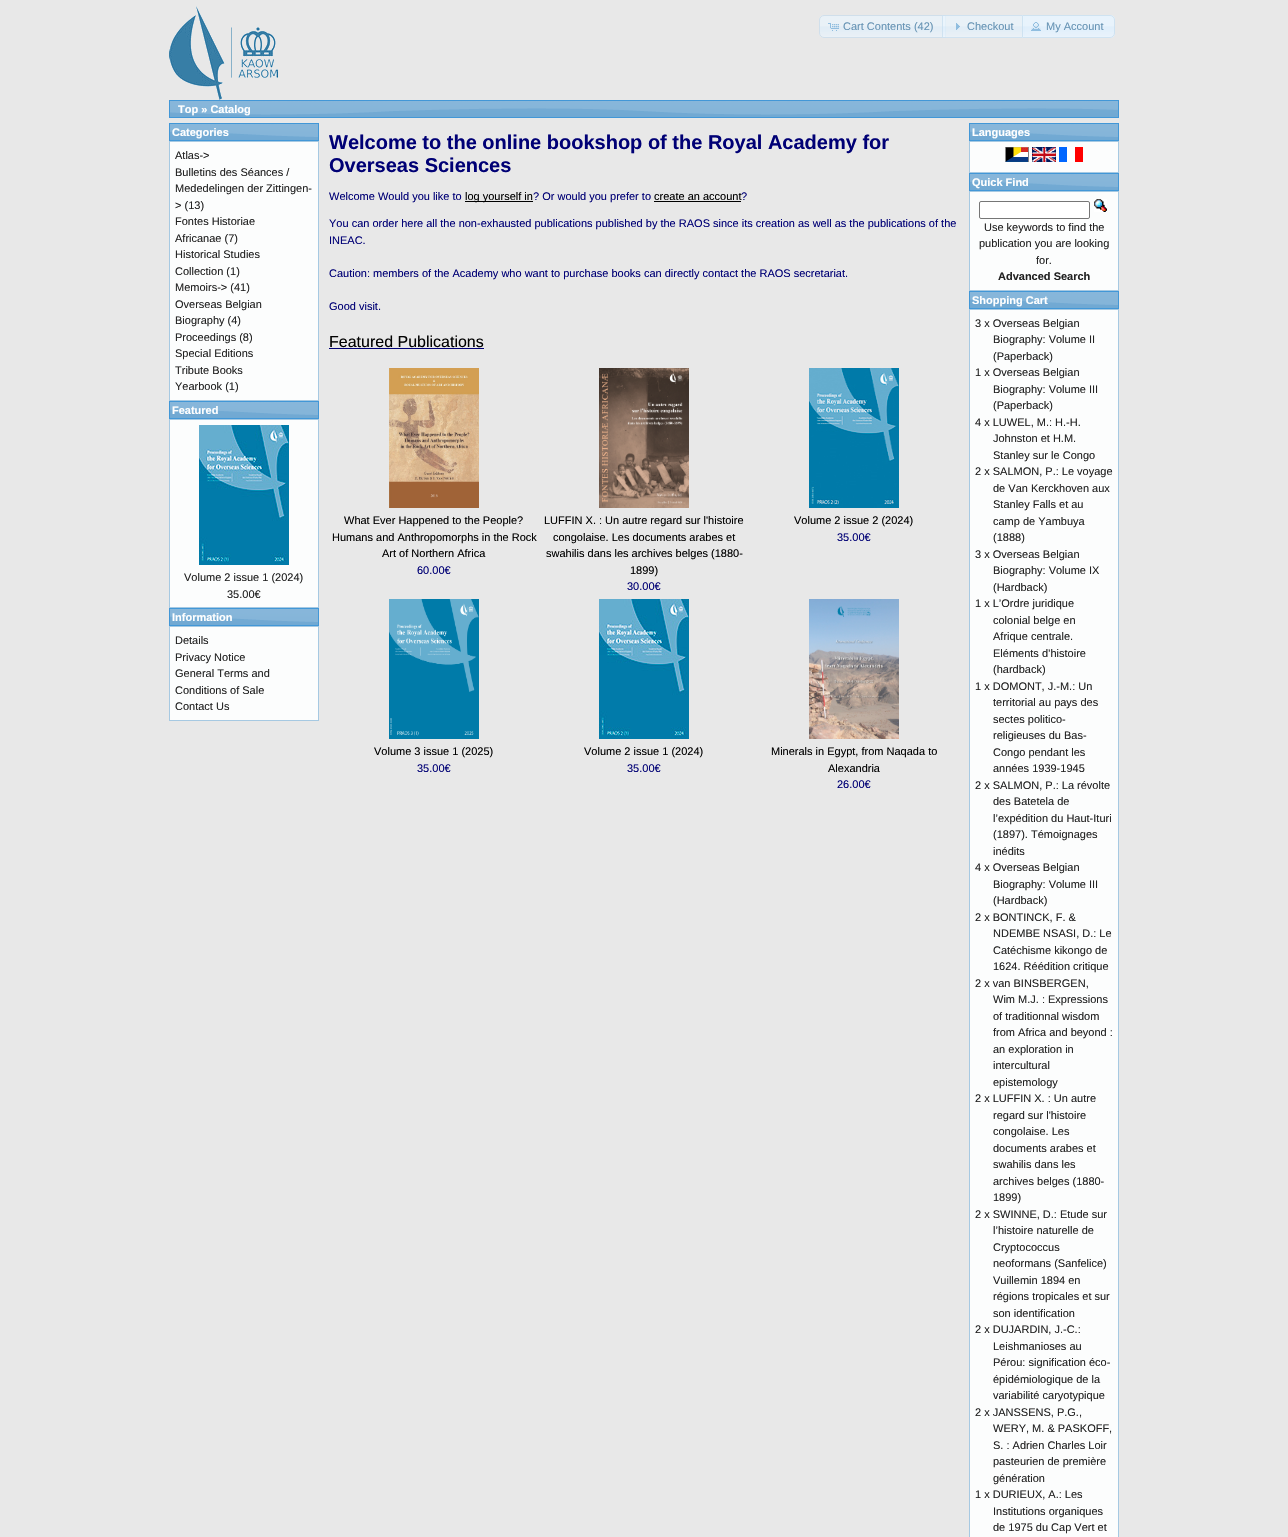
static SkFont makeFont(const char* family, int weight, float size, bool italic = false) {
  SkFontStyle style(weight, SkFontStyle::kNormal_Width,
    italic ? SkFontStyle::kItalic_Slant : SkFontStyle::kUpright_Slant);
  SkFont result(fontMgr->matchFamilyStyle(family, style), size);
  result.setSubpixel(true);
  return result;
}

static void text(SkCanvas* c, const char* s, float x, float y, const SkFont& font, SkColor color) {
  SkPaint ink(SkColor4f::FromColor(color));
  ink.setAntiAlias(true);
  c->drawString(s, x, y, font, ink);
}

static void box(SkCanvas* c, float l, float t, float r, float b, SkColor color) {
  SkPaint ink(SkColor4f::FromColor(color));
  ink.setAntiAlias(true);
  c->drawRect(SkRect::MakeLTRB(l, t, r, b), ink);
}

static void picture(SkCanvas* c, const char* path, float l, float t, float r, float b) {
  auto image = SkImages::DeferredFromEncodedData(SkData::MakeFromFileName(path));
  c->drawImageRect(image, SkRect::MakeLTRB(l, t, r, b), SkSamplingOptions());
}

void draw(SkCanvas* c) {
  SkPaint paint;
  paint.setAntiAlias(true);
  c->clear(0xffe8e8e8);
  picture(c, "img_01.png", 169, 6, 278, 100);
  picture(c, "img_02.png", 819, 15, 945, 38);
  paint.setStyle(SkPaint::kStroke_Style);
  paint.setStrokeWidth(1);
  paint.setColor(0xffd0dfeb);
  c->drawPath(SkPathBuilder().moveTo(824, 15.5f).lineTo(945.5f, 15.5f).lineTo(945.5f, 37.5f).lineTo(824, 37.5f).cubicTo(821.5f, 37.5f, 819.5f, 35.5f, 819.5f, 33).lineTo(819.5f, 20).cubicTo(819.5f, 17.5f, 821.5f, 15.5f, 824, 15.5f).close().detach(), paint);
  picture(c, "img_03.png", 828, 23, 839, 31);
  SkFont face1 = makeFont("Liberation Sans", 400, 11);
  text(c, "Cart Contents (42)", 843, 30, face1, 0xff6693b4);
  picture(c, "img_04.png", 942, 15, 1025, 38);
  paint.setColor(0xb3c5dbec);
  c->drawRect(SkRect::MakeLTRB(942.5f, 15.5f, 1024.5f, 37.5f), paint);
  picture(c, "img_05.png", 956, 23, 960, 30);
  text(c, "Checkout", 967, 30, face1, 0xff6693b4);
  paint.setStyle(SkPaint::kFill_Style);
  paint.setColor(0xb3dfeffc);
  c->drawPath(SkPathBuilder().moveTo(1022, 15).lineTo(1110, 15).cubicTo(1113, 15, 1115, 17, 1115, 20).lineTo(1115, 33).cubicTo(1115, 36, 1113, 38, 1110, 38).lineTo(1022, 38).close().detach(), paint);
  picture(c, "img_06.png", 1022, 15, 1115, 38);
  paint.setStyle(SkPaint::kStroke_Style);
  paint.setColor(0xb3c5dbec);
  c->drawPath(SkPathBuilder().moveTo(1022.5f, 15.5f).lineTo(1110, 15.5f).cubicTo(1112.5f, 15.5f, 1114.5f, 17.5f, 1114.5f, 20).lineTo(1114.5f, 33).cubicTo(1114.5f, 35.5f, 1112.5f, 37.5f, 1110, 37.5f).lineTo(1022.5f, 37.5f).close().detach(), paint);
  picture(c, "img_07.png", 1031, 22, 1041, 31);
  text(c, "My Account", 1046, 30, face1, 0xff6693b4);
  picture(c, "img_08.png", 170, 101, 1118, 117);
  paint.setColor(0xff4297d7);
  c->drawRect(SkRect::MakeLTRB(169.5f, 100.5f, 1118.5f, 117.5f), paint);
  SkFont face2 = makeFont("Liberation Sans", 700, 11);
  text(c, "Top » Catalog", 178, 113, face2, 0xffffffff);
  picture(c, "img_09.png", 170, 124, 318, 140);
  c->drawRect(SkRect::MakeLTRB(169.5f, 123.5f, 318.5f, 140.5f), paint);
  text(c, "Categories", 172, 136, face2, 0xffffffff);
  paint.setStyle(SkPaint::kFill_Style);
  paint.setColor(0xfffcfdfd);
  c->drawRect(SkRect::MakeLTRB(169.5f, 141.5f, 318.5f, 400.5f), paint);
  paint.setStyle(SkPaint::kStroke_Style);
  paint.setColor(0xffa6c9e2);
  c->drawRect(SkRect::MakeLTRB(169.5f, 141.5f, 318.5f, 400.5f), paint);
  text(c, "Atlas->", 175, 159, face1, 0xff222222);
  text(c, "Bulletins des Séances /", 175, 176, face1, 0xff222222);
  text(c, "Mededelingen der Zittingen-", 175, 192, face1, 0xff222222);
  text(c, "> (13)", 175, 209, face1, 0xff222222);
  text(c, "Fontes Historiae", 175, 225, face1, 0xff222222);
  text(c, "Africanae (7)", 175, 242, face1, 0xff222222);
  text(c, "Historical Studies", 175, 258, face1, 0xff222222);
  text(c, "Collection (1)", 175, 275, face1, 0xff222222);
  text(c, "Memoirs-> (41)", 175, 291, face1, 0xff222222);
  text(c, "Overseas Belgian", 175, 308, face1, 0xff222222);
  text(c, "Biography (4)", 175, 324, face1, 0xff222222);
  text(c, "Proceedings (8)", 175, 341, face1, 0xff222222);
  text(c, "Special Editions", 175, 357, face1, 0xff222222);
  text(c, "Tribute Books", 175, 374, face1, 0xff222222);
  text(c, "Yearbook (1)", 175, 390, face1, 0xff222222);
  picture(c, "img_09.png", 170, 402, 318, 418);
  paint.setColor(0xff4297d7);
  c->drawRect(SkRect::MakeLTRB(169.5f, 401.5f, 318.5f, 418.5f), paint);
  text(c, "Featured", 172, 414, face2, 0xffffffff);
  paint.setStyle(SkPaint::kFill_Style);
  paint.setColor(0xfffcfdfd);
  c->drawRect(SkRect::MakeLTRB(169.5f, 419.5f, 318.5f, 607.5f), paint);
  paint.setStyle(SkPaint::kStroke_Style);
  paint.setColor(0xffa6c9e2);
  c->drawRect(SkRect::MakeLTRB(169.5f, 419.5f, 318.5f, 607.5f), paint);
  picture(c, "img_10.png", 199, 425, 289, 565);
  text(c, "Volume 2 issue 1 (2024)", 184, 581, face1, 0xff222222);
  text(c, "35.00€", 227, 598, face1, 0xff222222);
  picture(c, "img_09.png", 170, 609, 318, 625);
  paint.setColor(0xff4297d7);
  c->drawRect(SkRect::MakeLTRB(169.5f, 608.5f, 318.5f, 625.5f), paint);
  text(c, "Information", 172, 621, face2, 0xffffffff);
  paint.setStyle(SkPaint::kFill_Style);
  paint.setColor(0xfffcfdfd);
  c->drawRect(SkRect::MakeLTRB(169.5f, 626.5f, 318.5f, 720.5f), paint);
  paint.setStyle(SkPaint::kStroke_Style);
  paint.setColor(0xffa6c9e2);
  c->drawRect(SkRect::MakeLTRB(169.5f, 626.5f, 318.5f, 720.5f), paint);
  text(c, "Details", 175, 644, face1, 0xff222222);
  text(c, "Privacy Notice", 175, 661, face1, 0xff222222);
  text(c, "General Terms and", 175, 677, face1, 0xff222222);
  text(c, "Conditions of Sale", 175, 694, face1, 0xff222222);
  text(c, "Contact Us", 175, 710, face1, 0xff222222);
  SkFont face3 = makeFont("Liberation Sans", 700, 20);
  text(c, "Welcome to the online bookshop of the Royal Academy for", 329, 149, face3, 0xff000075);
  text(c, "Overseas Sciences", 329, 172, face3, 0xff000075);
  text(c, "Welcome Would you like to", 329, 200, face1, 0xff000075);
  box(c, 465, 201, 533, 202, 0xff000000);
  text(c, "log yourself in", 465, 200, face1, 0xff000000);
  text(c, "? Or would you prefer to", 533, 200, face1, 0xff000075);
  text(c, "create an account", 654, 200, face1, 0xff000000);
  box(c, 654, 201, 741, 202, 0xff000000);
  text(c, "?", 741, 200, face1, 0xff000075);
  text(c, "You can order here all the non-exhausted publications published by the RAOS since its creation as well as the publications of the", 329, 227, face1, 0xff000075);
  text(c, "INEAC.", 329, 244, face1, 0xff000075);
  text(c, "Caution: members of the Academy who want to purchase books can directly contact the RAOS secretariat.", 329, 277, face1, 0xff000075);
  text(c, "Good visit.", 329, 310, face1, 0xff000075);
  SkFont face4 = makeFont("Liberation Sans", 400, 16);
  text(c, "Featured Publications", 329, 347, face4, 0xff000000);
  box(c, 329, 348, 484, 349, 0xff000075);
  picture(c, "img_11.png", 389, 368, 479, 508);
  text(c, "What Ever Happened to the People?", 344, 524, face1, 0xff000000);
  text(c, "Humans and Anthropomorphs in the Rock", 332, 541, face1, 0xff000000);
  text(c, "Art of Northern Africa", 382, 557, face1, 0xff000000);
  text(c, "60.00€", 417, 574, face1, 0xff000075);
  picture(c, "img_12.png", 599, 368, 689, 508);
  text(c, "LUFFIN X. : Un autre regard sur l'histoire", 544, 524, face1, 0xff000000);
  text(c, "congolaise. Les documents arabes et", 553, 541, face1, 0xff000000);
  text(c, "swahilis dans les archives belges (1880-", 546, 557, face1, 0xff000000);
  text(c, "1899)", 630, 574, face1, 0xff000000);
  text(c, "30.00€", 627, 590, face1, 0xff000075);
  picture(c, "img_13.png", 809, 368, 899, 508);
  text(c, "Volume 2 issue 2 (2024)", 794, 524, face1, 0xff000000);
  text(c, "35.00€", 837, 541, face1, 0xff000075);
  picture(c, "img_14.png", 389, 599, 479, 739);
  text(c, "Volume 3 issue 1 (2025)", 374, 755, face1, 0xff000000);
  text(c, "35.00€", 417, 772, face1, 0xff000075);
  picture(c, "img_10.png", 599, 599, 689, 739);
  text(c, "Volume 2 issue 1 (2024)", 584, 755, face1, 0xff000000);
  text(c, "35.00€", 627, 772, face1, 0xff000075);
  picture(c, "img_15.png", 809, 599, 899, 739);
  text(c, "Minerals in Egypt, from Naqada to", 771, 755, face1, 0xff000000);
  text(c, "Alexandria", 828, 772, face1, 0xff000000);
  text(c, "26.00€", 837, 788, face1, 0xff000075);
  picture(c, "img_09.png", 970, 124, 1118, 140);
  paint.setColor(0xff4297d7);
  c->drawRect(SkRect::MakeLTRB(969.5f, 123.5f, 1118.5f, 140.5f), paint);
  text(c, "Languages", 972, 136, face2, 0xffffffff);
  paint.setStyle(SkPaint::kFill_Style);
  paint.setColor(0xfffcfdfd);
  c->drawRect(SkRect::MakeLTRB(969.5f, 141.5f, 1118.5f, 172.5f), paint);
  paint.setStyle(SkPaint::kStroke_Style);
  paint.setColor(0xffa6c9e2);
  c->drawRect(SkRect::MakeLTRB(969.5f, 141.5f, 1118.5f, 172.5f), paint);
  picture(c, "img_16.png", 1005, 147, 1029, 162);
  picture(c, "img_17.png", 1032, 147, 1056, 162);
  picture(c, "img_18.png", 1059, 147, 1083, 162);
  picture(c, "img_09.png", 970, 174, 1118, 190);
  paint.setColor(0xff4297d7);
  c->drawRect(SkRect::MakeLTRB(969.5f, 173.5f, 1118.5f, 190.5f), paint);
  text(c, "Quick Find", 972, 186, face2, 0xffffffff);
  paint.setStyle(SkPaint::kFill_Style);
  paint.setColor(0xfffcfdfd);
  c->drawRect(SkRect::MakeLTRB(969.5f, 191.5f, 1118.5f, 290.5f), paint);
  paint.setStyle(SkPaint::kStroke_Style);
  paint.setColor(0xffa6c9e2);
  c->drawRect(SkRect::MakeLTRB(969.5f, 191.5f, 1118.5f, 290.5f), paint);
  paint.setStyle(SkPaint::kFill_Style);
  paint.setColor(0xffffffff);
  c->drawRoundRect(SkRect::MakeLTRB(979.5f, 201.5f, 1089.5f, 218.5f), 1.5f, 1.5f, paint);
  paint.setStyle(SkPaint::kStroke_Style);
  paint.setColor(0xff767676);
  c->drawRoundRect(SkRect::MakeLTRB(979.5f, 201.5f, 1089.5f, 218.5f), 1.5f, 1.5f, paint);
  picture(c, "img_19.png", 1094, 199, 1107, 212);
  text(c, "Use keywords to find the", 984, 231, face1, 0xff222222);
  text(c, "publication you are looking", 979, 247, face1, 0xff222222);
  text(c, "for.", 1036, 264, face1, 0xff222222);
  text(c, "Advanced Search", 998, 280, face2, 0xff222222);
  picture(c, "img_09.png", 970, 292, 1118, 308);
  paint.setColor(0xff4297d7);
  c->drawRect(SkRect::MakeLTRB(969.5f, 291.5f, 1118.5f, 308.5f), paint);
  text(c, "Shopping Cart", 972, 304, face2, 0xffffffff);
  paint.setStyle(SkPaint::kFill_Style);
  paint.setColor(0xfffcfdfd);
  c->drawRect(SkRect::MakeLTRB(969.5f, 309.5f, 1118.5f, 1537.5f), paint);
  paint.setStyle(SkPaint::kStroke_Style);
  paint.setColor(0xffa6c9e2);
  c->drawRect(SkRect::MakeLTRB(969.5f, 309.5f, 1118.5f, 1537.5f), paint);
  text(c, "3 x Overseas Belgian", 975, 327, face1, 0xff222222);
  text(c, "Biography: Volume II", 993, 343, face1, 0xff222222);
  text(c, "(Paperback)", 993, 360, face1, 0xff222222);
  text(c, "1 x Overseas Belgian", 975, 376, face1, 0xff222222);
  text(c, "Biography: Volume III", 993, 393, face1, 0xff222222);
  text(c, "(Paperback)", 993, 409, face1, 0xff222222);
  text(c, "4 x LUWEL, M.: H.-H.", 975, 426, face1, 0xff222222);
  text(c, "Johnston et H.M.", 993, 442, face1, 0xff222222);
  text(c, "Stanley sur le Congo", 993, 459, face1, 0xff222222);
  text(c, "2 x SALMON, P.: Le voyage", 975, 475, face1, 0xff222222);
  text(c, "de Van Kerckhoven aux", 993, 492, face1, 0xff222222);
  text(c, "Stanley Falls et au", 993, 508, face1, 0xff222222);
  text(c, "camp de Yambuya", 993, 525, face1, 0xff222222);
  text(c, "(1888)", 993, 541, face1, 0xff222222);
  text(c, "3 x Overseas Belgian", 975, 558, face1, 0xff222222);
  text(c, "Biography: Volume IX", 993, 574, face1, 0xff222222);
  text(c, "(Hardback)", 993, 591, face1, 0xff222222);
  text(c, "1 x L’Ordre juridique", 975, 607, face1, 0xff222222);
  text(c, "colonial belge en", 993, 624, face1, 0xff222222);
  text(c, "Afrique centrale.", 993, 640, face1, 0xff222222);
  text(c, "Eléments d’histoire", 993, 657, face1, 0xff222222);
  text(c, "(hardback)", 993, 673, face1, 0xff222222);
  text(c, "1 x DOMONT, J.-M.: Un", 975, 690, face1, 0xff222222);
  text(c, "territorial au pays des", 993, 706, face1, 0xff222222);
  text(c, "sectes politico-", 993, 723, face1, 0xff222222);
  text(c, "religieuses du Bas-", 993, 739, face1, 0xff222222);
  text(c, "Congo pendant les", 993, 756, face1, 0xff222222);
  text(c, "années 1939-1945", 993, 772, face1, 0xff222222);
  text(c, "2 x SALMON, P.: La révolte", 975, 789, face1, 0xff222222);
  text(c, "des Batetela de", 993, 805, face1, 0xff222222);
  text(c, "l’expédition du Haut-Ituri", 993, 822, face1, 0xff222222);
  text(c, "(1897). Témoignages", 993, 838, face1, 0xff222222);
  text(c, "inédits", 993, 855, face1, 0xff222222);
  text(c, "4 x Overseas Belgian", 975, 871, face1, 0xff222222);
  text(c, "Biography: Volume III", 993, 888, face1, 0xff222222);
  text(c, "(Hardback)", 993, 904, face1, 0xff222222);
  text(c, "2 x BONTINCK, F. &", 975, 921, face1, 0xff222222);
  text(c, "NDEMBE NSASI, D.: Le", 993, 937, face1, 0xff222222);
  text(c, "Catéchisme kikongo de", 993, 954, face1, 0xff222222);
  text(c, "1624. Réédition critique", 993, 970, face1, 0xff222222);
  text(c, "2 x van BINSBERGEN,", 975, 987, face1, 0xff222222);
  text(c, "Wim M.J. : Expressions", 993, 1003, face1, 0xff222222);
  text(c, "of traditionnal wisdom", 993, 1020, face1, 0xff222222);
  text(c, "from Africa and beyond :", 993, 1036, face1, 0xff222222);
  text(c, "an exploration in", 993, 1053, face1, 0xff222222);
  text(c, "intercultural", 993, 1069, face1, 0xff222222);
  text(c, "epistemology", 993, 1086, face1, 0xff222222);
  text(c, "2 x LUFFIN X. : Un autre", 975, 1102, face1, 0xff222222);
  text(c, "regard sur l'histoire", 993, 1119, face1, 0xff222222);
  text(c, "congolaise. Les", 993, 1135, face1, 0xff222222);
  text(c, "documents arabes et", 993, 1152, face1, 0xff222222);
  text(c, "swahilis dans les", 993, 1168, face1, 0xff222222);
  text(c, "archives belges (1880-", 993, 1185, face1, 0xff222222);
  text(c, "1899)", 993, 1201, face1, 0xff222222);
  text(c, "2 x SWINNE, D.: Etude sur", 975, 1218, face1, 0xff222222);
  text(c, "l’histoire naturelle de", 993, 1234, face1, 0xff222222);
  text(c, "Cryptococcus", 993, 1251, face1, 0xff222222);
  text(c, "neoformans (Sanfelice)", 993, 1267, face1, 0xff222222);
  text(c, "Vuillemin 1894 en", 993, 1284, face1, 0xff222222);
  text(c, "régions tropicales et sur", 993, 1300, face1, 0xff222222);
  text(c, "son identification", 993, 1317, face1, 0xff222222);
  text(c, "2 x DUJARDIN, J.-C.:", 975, 1333, face1, 0xff222222);
  text(c, "Leishmanioses au", 993, 1350, face1, 0xff222222);
  text(c, "Pérou: signification éco-", 993, 1366, face1, 0xff222222);
  text(c, "épidémiologique de la", 993, 1383, face1, 0xff222222);
  text(c, "variabilité caryotypique", 993, 1399, face1, 0xff222222);
  text(c, "2 x JANSSENS, P.G.,", 975, 1416, face1, 0xff222222);
  text(c, "WERY, M. & PASKOFF,", 993, 1432, face1, 0xff222222);
  text(c, "S. : Adrien Charles Loir", 993, 1449, face1, 0xff222222);
  text(c, "pasteurien de première", 993, 1465, face1, 0xff222222);
  text(c, "génération", 993, 1482, face1, 0xff222222);
  text(c, "1 x DURIEUX, A.: Les", 975, 1498, face1, 0xff222222);
  text(c, "Institutions organiques", 993, 1515, face1, 0xff222222);
  text(c, "de 1975 du Cap Vert et", 993, 1531, face1, 0xff222222);
}
